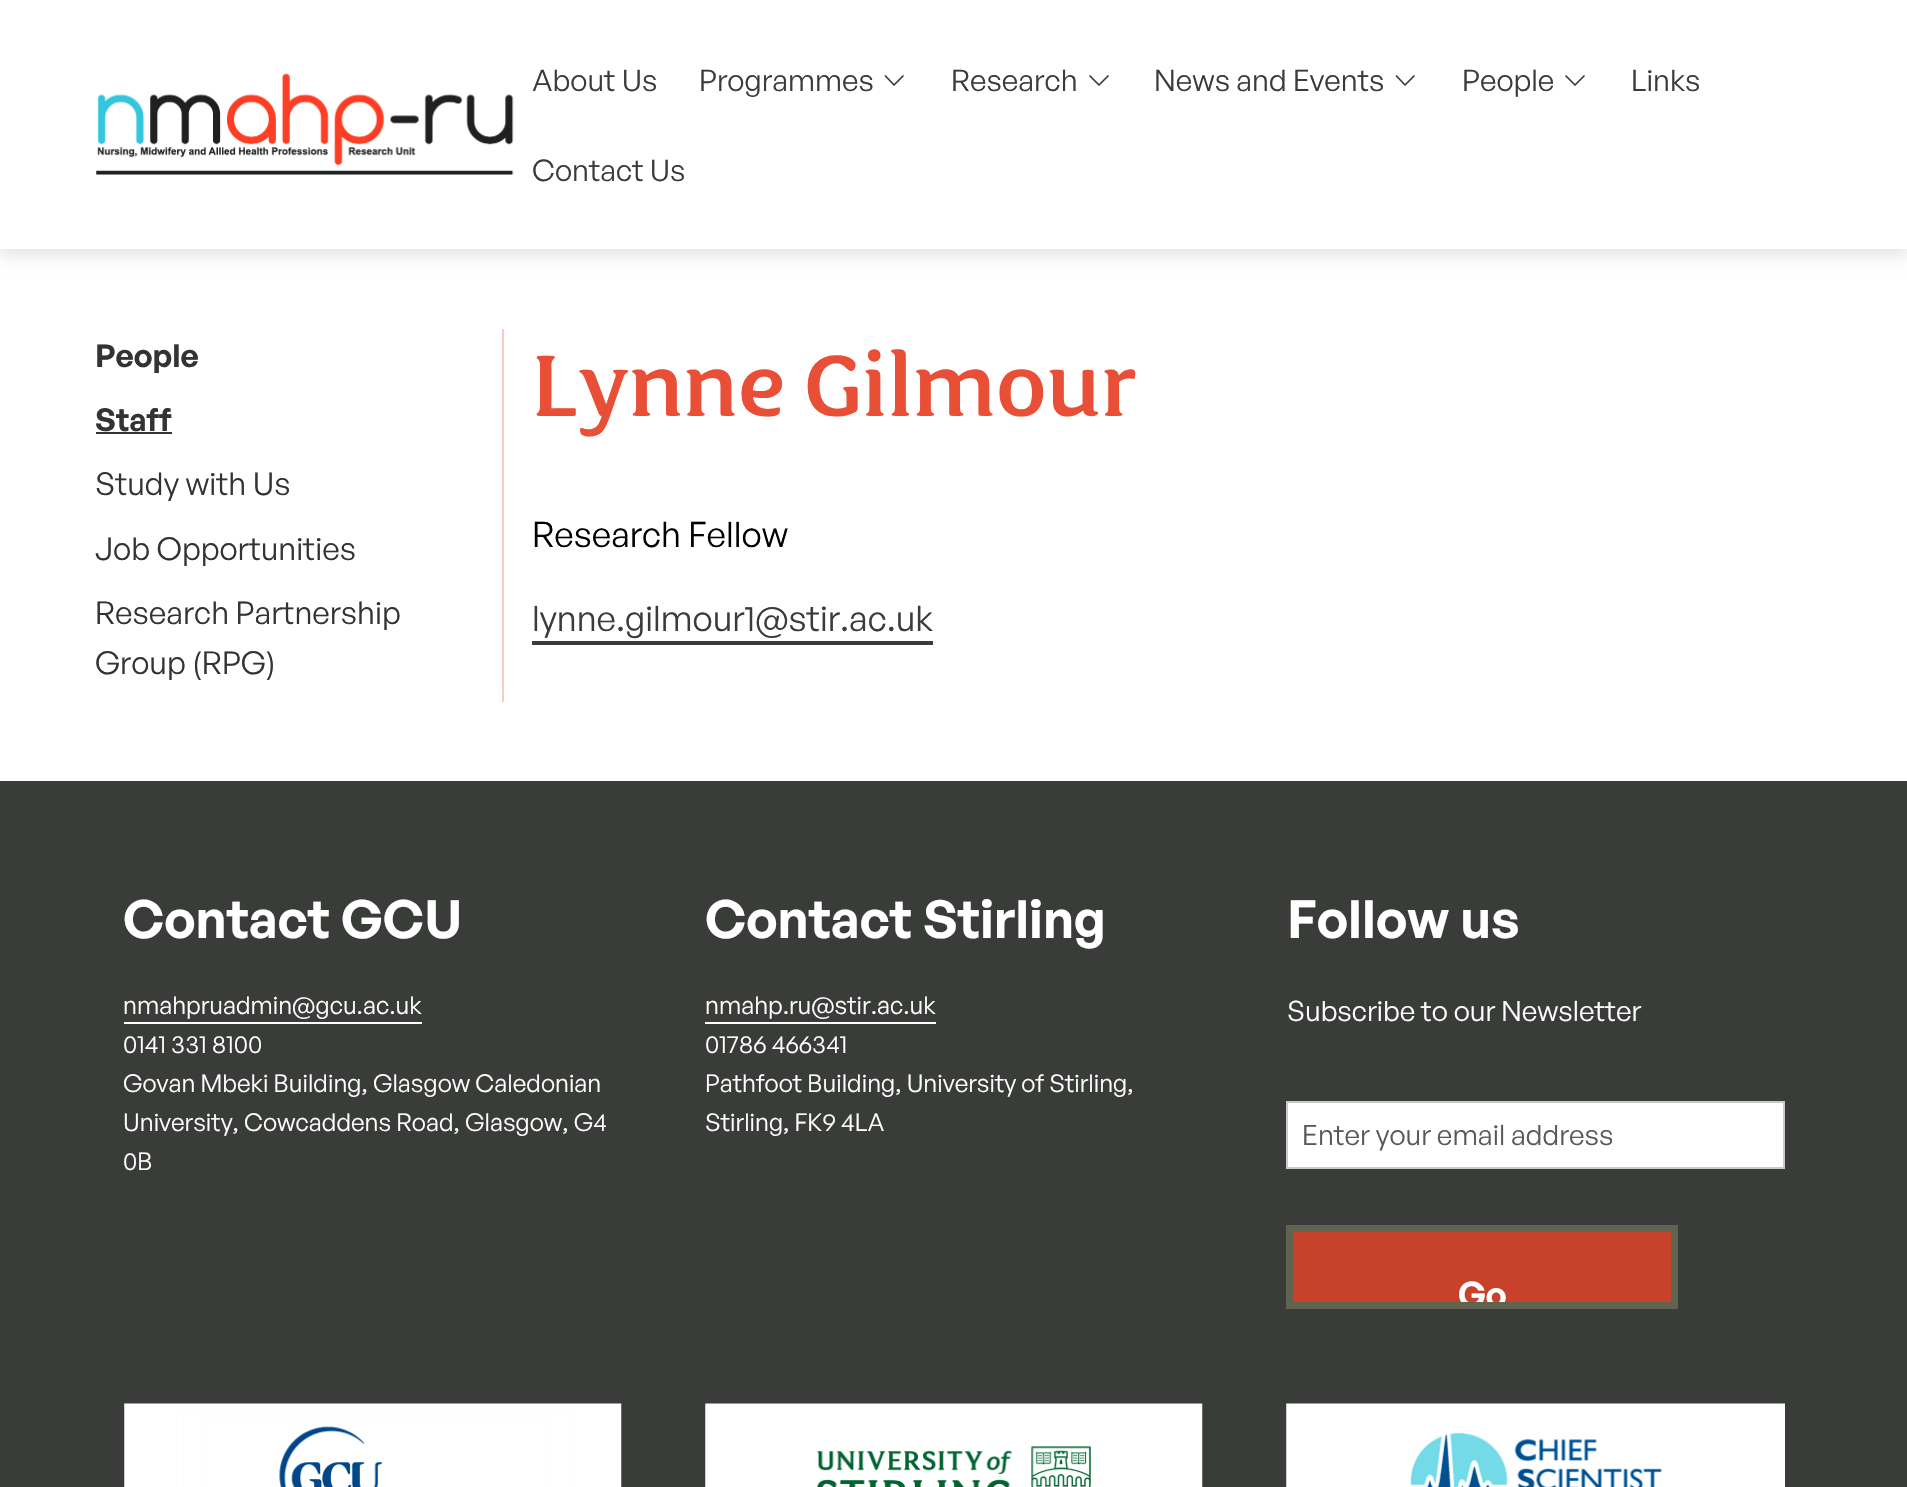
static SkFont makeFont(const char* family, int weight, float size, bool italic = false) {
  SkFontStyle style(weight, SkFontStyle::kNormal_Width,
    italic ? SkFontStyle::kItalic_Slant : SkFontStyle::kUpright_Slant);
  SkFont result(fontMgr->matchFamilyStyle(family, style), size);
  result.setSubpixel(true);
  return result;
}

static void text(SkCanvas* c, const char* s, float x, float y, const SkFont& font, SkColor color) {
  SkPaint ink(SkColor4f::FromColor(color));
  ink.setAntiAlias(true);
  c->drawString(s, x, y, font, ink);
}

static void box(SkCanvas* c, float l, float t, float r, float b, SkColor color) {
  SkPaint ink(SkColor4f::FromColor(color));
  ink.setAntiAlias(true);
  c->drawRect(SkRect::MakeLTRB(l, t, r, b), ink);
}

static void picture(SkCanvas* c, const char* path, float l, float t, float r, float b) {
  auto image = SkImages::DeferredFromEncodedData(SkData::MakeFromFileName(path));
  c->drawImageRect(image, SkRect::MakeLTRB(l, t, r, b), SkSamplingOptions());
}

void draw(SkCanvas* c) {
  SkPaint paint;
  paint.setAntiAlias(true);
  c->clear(0xffffffff);
  paint.setColor(0x1a000000);
  paint.setMaskFilter(SkMaskFilter::MakeBlur(kNormal_SkBlurStyle, 7));
  c->drawRect(SkRect::MakeLTRB(0, 7, 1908, 256), paint);
  paint.setMaskFilter(nullptr);
  box(c, 0, 0, 1907, 249, 0xffffffff);
  picture(c, "img_01.png", 96, 73, 514, 175);
  SkFont face1 = makeFont("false", 400, 29.75f);
  text(c, "About Us", 532, 91, face1, 0xff3a3c39);
  text(c, "Programmes", 699, 91, face1, 0xff3a3c39);
  paint.setStyle(SkPaint::kStroke_Style);
  paint.setStrokeWidth(1.7f);
  paint.setStrokeCap(SkPaint::kRound_Cap);
  paint.setStrokeJoin(SkPaint::kRound_Join);
  paint.setColor(0xff3a3c39);
  c->drawPath(SkPathBuilder().moveTo(903, 76).lineTo(894, 85).lineTo(885.5f, 76).detach(), paint);
  text(c, "Research", 951, 91, face1, 0xff3a3c39);
  c->drawPath(SkPathBuilder().moveTo(1108, 76).lineTo(1099, 85).lineTo(1090, 76).detach(), paint);
  text(c, "News and Events", 1154, 91, face1, 0xff3a3c39);
  c->drawPath(SkPathBuilder().moveTo(1414, 76).lineTo(1405, 85).lineTo(1396.5f, 76).detach(), paint);
  text(c, "People", 1462, 91, face1, 0xff3a3c39);
  c->drawPath(SkPathBuilder().moveTo(1584, 76).lineTo(1575, 85).lineTo(1566, 76).detach(), paint);
  text(c, "Links", 1631, 91, face1, 0xff3a3c39);
  text(c, "Contact Us", 532, 181, face1, 0xff3a3c39);
  box(c, 502, 329, 504, 702, 0xfff8cac3);
  SkFont face2 = makeFont("General Sans", 600, 31.5f);
  text(c, "People", 95, 367, face2, 0xff333333);
  text(c, "Staff", 95, 431, face2, 0xff333333);
  box(c, 96, 432, 172, 434, 0xff333333);
  SkFont face3 = makeFont("false", 400, 31.5f);
  text(c, "Study with Us", 95, 495, face3, 0xff333333);
  text(c, "Job Opportunities", 95, 560, face3, 0xff333333);
  text(c, "Research Partnership", 95, 624, face3, 0xff333333);
  text(c, "Group (RPG)", 95, 674, face3, 0xff333333);
  SkFont face4 = makeFont("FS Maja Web", 400, 98);
  text(c, "Lynne Gilmour", 532, 416, face4, 0xffe94f36);
  SkFont face5 = makeFont("false", 400, 35);
  text(c, "Research Fellow", 532, 547, face5, 0xff000000);
  text(c, "lynne.gilmour1@stir.ac.uk", 532, 631, face5, 0xff3a3c39);
  box(c, 532, 641, 933, 645, 0xff3a3c39);
  box(c, 0, 781, 1907, 1487, 0xff3a3c39);
  SkFont face6 = makeFont("General Sans", 600, 52.5f);
  text(c, "Contact GCU", 123, 938, face6, 0xffffffff);
  SkFont face7 = makeFont("false", 400, 24.5f);
  text(c, "nmahpruadmin@gcu.ac.uk", 123, 1014, face7, 0xffffffff);
  box(c, 124, 1022, 422, 1024, 0xffffffff);
  text(c, "0141 331 8100", 123, 1053, face7, 0xffffffff);
  text(c, "Govan Mbeki Building, Glasgow Caledonian", 123, 1092, face7, 0xffffffff);
  text(c, "University, Cowcaddens Road, Glasgow, G4", 123, 1131, face7, 0xffffffff);
  text(c, "0B", 123, 1170, face7, 0xffffffff);
  text(c, "Contact Stirling", 705, 938, face6, 0xffffffff);
  text(c, "nmahp.ru@stir.ac.uk", 705, 1014, face7, 0xffffffff);
  box(c, 705, 1022, 936, 1024, 0xffffffff);
  text(c, "01786 466341", 705, 1053, face7, 0xffffffff);
  text(c, "Pathfoot Building, University of Stirling,", 705, 1092, face7, 0xffffffff);
  text(c, "Stirling, FK9 4LA", 705, 1131, face7, 0xffffffff);
  text(c, "Follow us", 1287, 938, face6, 0xffffffff);
  SkFont face8 = makeFont("false", 400, 28);
  text(c, "Subscribe to our Newsletter", 1287, 1021, face8, 0xffffffff);
  paint.setStyle(SkPaint::kFill_Style);
  paint.setColor(0xffffffff);
  c->drawRect(SkRect::MakeLTRB(1287, 1102, 1784, 1168), paint);
  paint.setStyle(SkPaint::kStroke_Style);
  paint.setStrokeWidth(2);
  paint.setStrokeCap(SkPaint::kButt_Cap);
  paint.setStrokeJoin(SkPaint::kMiter_Join);
  paint.setColor(0xffcacaca);
  c->drawRect(SkRect::MakeLTRB(1287, 1102, 1784, 1168), paint);
  text(c, "Enter your email address", 1302, 1145, face8, 0xff585858);
  paint.setStyle(SkPaint::kFill_Style);
  paint.setColor(0xffc8412b);
  c->drawRect(SkRect::MakeLTRB(1289.5f, 1228.5f, 1674.5f, 1305.5f), paint);
  paint.setStyle(SkPaint::kStroke_Style);
  paint.setStrokeWidth(7);
  paint.setColor(0xff5f6350);
  c->drawRect(SkRect::MakeLTRB(1289.5f, 1228.5f, 1674.5f, 1305.5f), paint);
  c->save();
  c->clipRect(SkRect::MakeLTRB(1293, 1232, 1671, 1302));
  SkFont face9 = makeFont("General Sans", 600, 35);
  text(c, "Go", 1458, 1307, face9, 0xffffffff);
  c->restore();
  picture(c, "img_02.png", 124, 1403, 622, 1487);
  picture(c, "img_03.png", 705, 1403, 1203, 1487);
  picture(c, "img_04.png", 1286, 1403, 1785, 1487);
}
